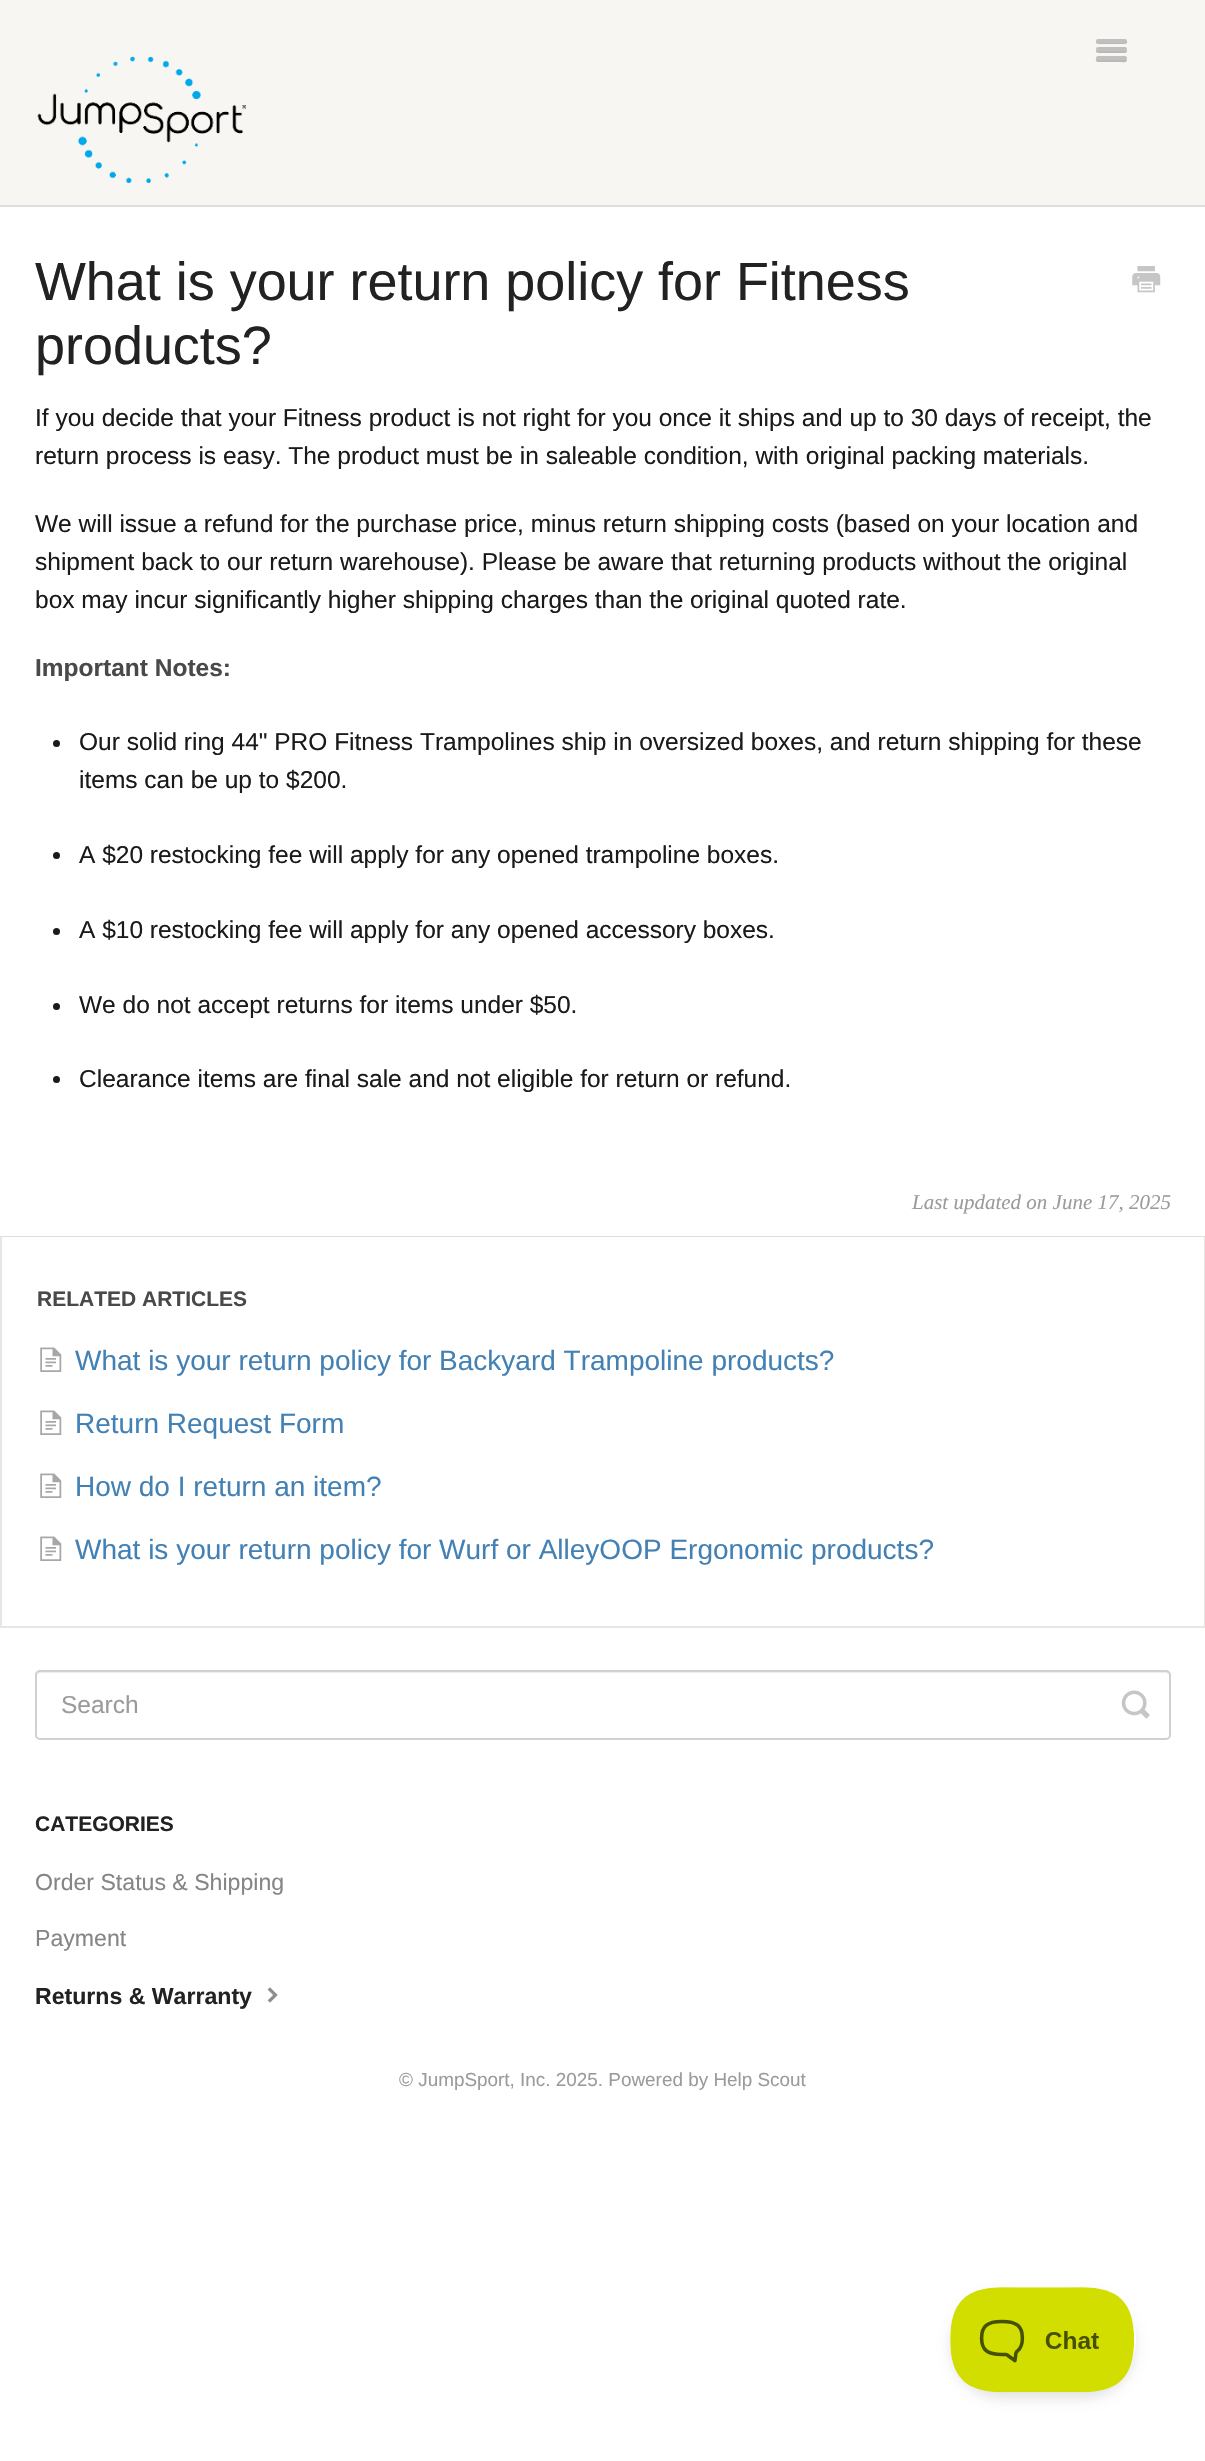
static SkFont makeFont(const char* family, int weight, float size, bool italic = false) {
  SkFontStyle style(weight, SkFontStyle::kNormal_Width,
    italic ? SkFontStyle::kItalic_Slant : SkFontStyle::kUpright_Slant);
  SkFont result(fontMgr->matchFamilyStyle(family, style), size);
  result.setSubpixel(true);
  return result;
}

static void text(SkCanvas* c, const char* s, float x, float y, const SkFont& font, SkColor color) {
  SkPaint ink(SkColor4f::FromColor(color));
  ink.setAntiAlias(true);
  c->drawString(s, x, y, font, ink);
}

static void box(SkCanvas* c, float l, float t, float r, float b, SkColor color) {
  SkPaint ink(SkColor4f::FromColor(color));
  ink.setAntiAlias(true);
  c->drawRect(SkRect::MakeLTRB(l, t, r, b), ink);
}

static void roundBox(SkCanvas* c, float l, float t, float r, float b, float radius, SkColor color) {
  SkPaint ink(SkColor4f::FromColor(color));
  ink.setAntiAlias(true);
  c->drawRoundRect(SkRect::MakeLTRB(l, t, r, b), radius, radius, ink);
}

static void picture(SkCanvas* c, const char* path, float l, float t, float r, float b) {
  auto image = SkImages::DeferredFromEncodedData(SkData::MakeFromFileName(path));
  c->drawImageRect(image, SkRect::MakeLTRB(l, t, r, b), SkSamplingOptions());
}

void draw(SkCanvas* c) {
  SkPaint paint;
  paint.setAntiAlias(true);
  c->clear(0xffffffff);
  box(c, 0, 0, 1205, 205, 0xfff8f6f2);
  paint.setColor(0xffbab9b6);
  c->drawPath(SkPathBuilder().moveTo(1096, 41.5f).cubicTo(1095, 45, 1101.5f, 44, 1102.5f, 44).lineTo(1120.5f, 44).cubicTo(1121.5f, 44, 1128.5f, 45, 1127, 41).lineTo(1125.5f, 42).lineTo(1097, 42).close().detach(), paint);
  roundBox(c, 1096, 39, 1127, 43, 2, 0xffc0c0c0);
  c->drawPath(SkPathBuilder().moveTo(1096, 50.5f).cubicTo(1095, 54, 1101.5f, 53, 1102.5f, 53).lineTo(1120.5f, 53).cubicTo(1121, 53, 1129, 54, 1126.5f, 50).lineTo(1125.5f, 50.5f).lineTo(1097, 50.5f).close().detach(), paint);
  roundBox(c, 1096, 47, 1127, 51, 2, 0xffc0c0c0);
  c->drawPath(SkPathBuilder().moveTo(1096, 59).cubicTo(1094.5f, 63, 1101.5f, 62, 1102.5f, 62).lineTo(1120.5f, 62).cubicTo(1121.5f, 62, 1126.5f, 63, 1127, 60.5f).lineTo(1126.5f, 59).lineTo(1125.5f, 59.5f).cubicTo(1123, 60, 1097, 60, 1096, 59).close().detach(), paint);
  roundBox(c, 1096, 56, 1127, 60, 2, 0xffc0c0c0);
  picture(c, "img_01.png", 37, 56, 246, 183);
  box(c, 0, 205, 1205, 207, 0xffdedede);
  box(c, 0, 1236, 1205, 1237, 0xffdedede);
  SkFont face1 = makeFont("Liberation Sans", 400, 53.9f);
  text(c, "What is your return policy for Fitness", 35, 300, face1, 0xff222222);
  text(c, "products?", 35, 364, face1, 0xff222222);
  picture(c, "img_02.png", 1132, 266, 1161, 293);
  SkFont face2 = makeFont("Liberation Sans", 400, 24.5f);
  text(c, "If you decide that your Fitness product is not right for you once it ships and up to 30 days of receipt, the", 35, 426, face2, 0xff1a1a1a);
  text(c, "return process is easy. The product must be in saleable condition, with original packing materials.", 35, 464, face2, 0xff1a1a1a);
  text(c, "We will issue a refund for the purchase price, minus return shipping costs (based on your location and", 35, 532, face2, 0xff1a1a1a);
  text(c, "shipment back to our return warehouse). Please be aware that returning products without the original", 35, 570, face2, 0xff1a1a1a);
  text(c, "box may incur significantly higher shipping charges than the original quoted rate.", 35, 608, face2, 0xff1a1a1a);
  SkFont face3 = makeFont("Liberation Sans", 700, 24.5f);
  text(c, "Important Notes:", 35, 676, face3, 0xff494949);
  paint.setColor(0xff1a1a1a);
  c->drawCircle(56.5f, 743.5f, 3.5f, paint);
  text(c, "Our solid ring 44\" PRO Fitness Trampolines ship in oversized boxes, and return shipping for these", 79, 750, face2, 0xff1a1a1a);
  text(c, "items can be up to $200.", 79, 788, face2, 0xff1a1a1a);
  c->drawCircle(56.5f, 855.5f, 3.5f, paint);
  text(c, "A $20 restocking fee will apply for any opened trampoline boxes.", 79, 863, face2, 0xff1a1a1a);
  c->drawCircle(56.5f, 931.5f, 3.5f, paint);
  text(c, "A $10 restocking fee will apply for any opened accessory boxes.", 79, 938, face2, 0xff1a1a1a);
  c->drawCircle(56.5f, 1006.5f, 3.5f, paint);
  text(c, "We do not accept returns for items under $50.", 79, 1013, face2, 0xff1a1a1a);
  c->drawCircle(56.5f, 1079.5f, 3.5f, paint);
  text(c, "Clearance items are final sale and not eligible for return or refund.", 79, 1087, face2, 0xff1a1a1a);
  SkFont face4 = makeFont("Liberation Serif", 400, 21, true);
  text(c, "Last updated on June 17, 2025", 912, 1209, face4, 0xff9b9b9b);
  box(c, 1204, 1237, 1205, 1628, 0xffe9e5e5);
  box(c, 0, 1626, 1205, 1628, 0xffe9e5e5);
  box(c, 0, 1237, 2, 1628, 0xffe9e5e5);
  SkFont face5 = makeFont("Liberation Sans", 700, 21);
  text(c, "RELATED ARTICLES", 37, 1306, face5, 0xff494949);
  picture(c, "img_03.png", 40, 1347, 62, 1372);
  SkFont face6 = makeFont("Liberation Sans", 400, 28);
  text(c, "What is your return policy for Backyard Trampoline products?", 75, 1370, face6, 0xff4381b5);
  picture(c, "img_03.png", 40, 1410, 62, 1435);
  text(c, "Return Request Form", 75, 1433, face6, 0xff4381b5);
  picture(c, "img_03.png", 40, 1473, 62, 1498);
  text(c, "How do I return an item?", 75, 1496, face6, 0xff4381b5);
  picture(c, "img_03.png", 40, 1536, 62, 1561);
  text(c, "What is your return policy for Wurf or AlleyOOP Ergonomic products?", 75, 1559, face6, 0xff4381b5);
  paint.setColor(0xffececec);
  c->drawPath(SkPathBuilder().moveTo(40, 1673).lineTo(1166, 1673).cubicTo(1167, 1673, 1169, 1675, 1169, 1676).cubicTo(1169, 1673, 1168, 1671, 1165, 1671).lineTo(41, 1671).cubicTo(38, 1671, 37, 1673, 37, 1676).cubicTo(37, 1675, 38, 1673, 40, 1673).close().detach(), paint);
  paint.setStyle(SkPaint::kStroke_Style);
  paint.setStrokeWidth(2);
  paint.setColor(0xffd0d0d0);
  c->drawRoundRect(SkRect::MakeLTRB(36, 1671, 1170, 1739), 4, 4, paint);
  text(c, "Search", 61, 1713, face2, 0xff9b9b9b);
  picture(c, "img_04.png", 1121, 1690, 1150, 1719);
  text(c, "CATEGORIES", 35, 1831, face5, 0xff222222);
  SkFont face7 = makeFont("Liberation Sans", 400, 23.1f);
  text(c, "Order Status & Shipping", 35, 1890, face7, 0xff858585);
  text(c, "Payment", 35, 1946, face7, 0xff858585);
  SkFont face8 = makeFont("Liberation Sans", 700, 23.1f);
  text(c, "Returns & Warranty", 35, 2004, face8, 0xff222222);
  picture(c, "img_05.png", 267, 1987, 278, 2003);
  SkFont face9 = makeFont("Liberation Sans", 400, 18.9f);
  text(c, "© JumpSport, Inc. 2025. Powered by Help Scout", 399, 2086, face9, 0xff9b9b9b);
  c->save();
  c->clipPath(SkPathBuilder(SkPathFillType::kEvenOdd).moveTo(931, 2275).lineTo(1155, 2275).lineTo(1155, 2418).lineTo(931, 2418).close().moveTo(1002.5f, 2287).lineTo(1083.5f, 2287).cubicTo(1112.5f, 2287, 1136, 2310.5f, 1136, 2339.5f).cubicTo(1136, 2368.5f, 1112.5f, 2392, 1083.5f, 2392).lineTo(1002.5f, 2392).cubicTo(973.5f, 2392, 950, 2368.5f, 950, 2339.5f).cubicTo(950, 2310.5f, 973.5f, 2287, 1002.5f, 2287).close().detach(), true);
  paint.setStyle(SkPaint::kFill_Style);
  paint.setColor(0x1a000000);
  paint.setMaskFilter(SkMaskFilter::MakeBlur(kNormal_SkBlurStyle, 6));
  c->drawRoundRect(SkRect::MakeLTRB(950, 2294, 1136, 2399), 52.5f, 52.5f, paint);
  paint.setMaskFilter(nullptr);
  c->restore();
  picture(c, "img_06.png", 950, 2287, 1134, 2393);
}
